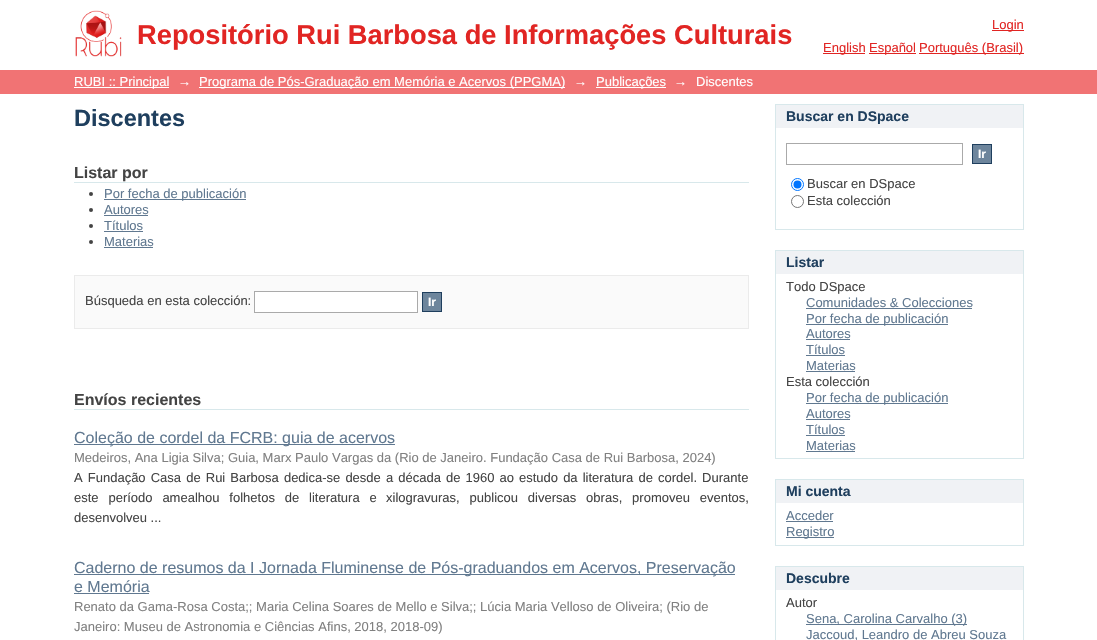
static SkFont makeFont(const char* family, int weight, float size, bool italic = false) {
  SkFontStyle style(weight, SkFontStyle::kNormal_Width,
    italic ? SkFontStyle::kItalic_Slant : SkFontStyle::kUpright_Slant);
  SkFont result(fontMgr->matchFamilyStyle(family, style), size);
  result.setSubpixel(true);
  return result;
}

static void text(SkCanvas* c, const char* s, float x, float y, const SkFont& font, SkColor color) {
  SkPaint ink(SkColor4f::FromColor(color));
  ink.setAntiAlias(true);
  c->drawString(s, x, y, font, ink);
}

static void spacedText(SkCanvas* c, const char* s, float x, float y, const SkFont& font, const SkPaint& ink, float letter, float word) {
  std::vector<SkGlyphID> glyphs(font.countText(s, strlen(s), SkTextEncoding::kUTF8));
  std::vector<float> xs(glyphs.size());
  font.textToGlyphs(s, strlen(s), SkTextEncoding::kUTF8, glyphs);
  font.getXPos(glyphs, xs, x);
  float extra = 0;
  for (size_t i = 0; i < glyphs.size(); i++) {
    xs[i] += extra;
    extra += letter + word * (glyphs[i] == font.unicharToGlyph(' '));
  }
  c->drawTextBlob(SkTextBlob::MakeFromPosHGlyphs(glyphs, xs, y, font), 0, 0, ink);
}

static void box(SkCanvas* c, float l, float t, float r, float b, SkColor color) {
  SkPaint ink(SkColor4f::FromColor(color));
  ink.setAntiAlias(true);
  c->drawRect(SkRect::MakeLTRB(l, t, r, b), ink);
}

static void picture(SkCanvas* c, const char* path, float l, float t, float r, float b) {
  auto image = SkImages::DeferredFromEncodedData(SkData::MakeFromFileName(path));
  c->drawImageRect(image, SkRect::MakeLTRB(l, t, r, b), SkSamplingOptions());
}

void draw(SkCanvas* c) {
  SkPaint paint;
  paint.setAntiAlias(true);
  c->clear(0xffffffff);
  picture(c, "img_01.png", 75, 10, 122, 57);
  SkFont face1 = makeFont("Liberation Sans", 700, 27.3f);
  text(c, "Repositório Rui Barbosa de Informações Culturais", 137, 44, face1, 0xffe12523);
  box(c, 992, 30, 1024, 31, 0xffe12523);
  SkFont face2 = makeFont("Liberation Sans", 400, 13);
  text(c, "Login", 992, 29, face2, 0xffe12523);
  box(c, 823, 53, 865, 54, 0xffe12523);
  text(c, "English", 823, 52, face2, 0xffe12523);
  box(c, 869, 53, 916, 54, 0xffe12523);
  text(c, "Español", 869, 52, face2, 0xffe12523);
  box(c, 919, 53, 1024, 54, 0xffe12523);
  text(c, "Português (Brasil)", 919, 52, face2, 0xffe12523);
  box(c, 0, 70, 1097, 94, 0xfff17374);
  box(c, 74, 87, 169, 88, 0xffffffff);
  text(c, "RUBI :: Principal", 74, 86, face2, 0xffffffff);
  text(c, "→", 178, 86, face2, 0xffffffff);
  box(c, 199, 87, 565, 88, 0xffffffff);
  text(c, "Programa de Pós-Graduação em Memória e Acervos (PPGMA)", 199, 86, face2, 0xffffffff);
  text(c, "→", 574, 86, face2, 0xffffffff);
  box(c, 596, 87, 666, 88, 0xffffffff);
  text(c, "Publicações", 596, 86, face2, 0xffffffff);
  text(c, "→", 674, 86, face2, 0xffffffff);
  text(c, "Discentes", 696, 86, face2, 0xffffffff);
  SkFont face3 = makeFont("Liberation Sans", 700, 23.5f);
  text(c, "Discentes", 74, 126, face3, 0xff1f3f5e);
  box(c, 74, 182, 749, 183, 0xffd8e8eb);
  SkFont face4 = makeFont("Liberation Sans", 700, 16);
  text(c, "Listar por", 74, 178, face4, 0xff444444);
  paint.setColor(0xff444444);
  c->drawCircle(91, 194, 2, paint);
  box(c, 104, 199, 246, 200, 0xff607890);
  text(c, "Por fecha de publicación", 104, 198, face2, 0xff607890);
  c->drawCircle(91, 210, 2, paint);
  text(c, "Autores", 104, 214, face2, 0xff607890);
  box(c, 104, 215, 148, 216, 0xff607890);
  c->drawCircle(91, 226, 2, paint);
  text(c, "Títulos", 104, 230, face2, 0xff607890);
  box(c, 104, 231, 143, 232, 0xff607890);
  c->drawCircle(91, 242, 2, paint);
  text(c, "Materias", 104, 246, face2, 0xff607890);
  box(c, 104, 247, 153, 248, 0xff607890);
  paint.setColor(0xfffafafa);
  c->drawRect(SkRect::MakeLTRB(74.5f, 275.5f, 748.5f, 328.5f), paint);
  paint.setStyle(SkPaint::kStroke_Style);
  paint.setStrokeWidth(1);
  paint.setColor(0xffebebeb);
  c->drawRect(SkRect::MakeLTRB(74.5f, 275.5f, 748.5f, 328.5f), paint);
  text(c, "Búsqueda en esta colección:", 85, 305, face2, 0xff444444);
  paint.setStyle(SkPaint::kFill_Style);
  paint.setColor(0xffffffff);
  c->drawRect(SkRect::MakeLTRB(254.5f, 291.5f, 417.5f, 312.5f), paint);
  paint.setStyle(SkPaint::kStroke_Style);
  paint.setColor(0xffaaaaaa);
  c->drawRect(SkRect::MakeLTRB(254.5f, 291.5f, 417.5f, 312.5f), paint);
  paint.setStyle(SkPaint::kFill_Style);
  paint.setColor(0xff6d859c);
  c->drawRect(SkRect::MakeLTRB(422.5f, 292.5f, 441.5f, 311.5f), paint);
  paint.setStyle(SkPaint::kStroke_Style);
  paint.setColor(0xff1f3f5e);
  c->drawRect(SkRect::MakeLTRB(422.5f, 292.5f, 441.5f, 311.5f), paint);
  SkFont face5 = makeFont("Liberation Sans", 700, 12);
  text(c, "Ir", 428, 306, face5, 0xffffffff);
  box(c, 74, 409, 749, 410, 0xffd8e8eb);
  text(c, "Envíos recientes", 74, 405, face4, 0xff444444);
  box(c, 74, 444, 395, 445, 0xff607890);
  SkFont face6 = makeFont("Liberation Sans", 400, 16);
  text(c, "Coleção de cordel da FCRB: guia de acervos", 74, 443, face6, 0xff607890);
  text(c, "Medeiros, Ana Ligia Silva; Guia, Marx Paulo Vargas da (Rio de Janeiro. Fundação Casa de Rui Barbosa, 2024)", 74, 462, face2, 0xff808080);
  paint.setStyle(SkPaint::kFill_Style);
  paint.setColor(0xff444444);
  spacedText(c, "A Fundação Casa de Rui Barbosa dedica-se desde a década de 1960 ao", 74, 482, face2, paint, 0, 1.5f);
  spacedText(c, "estudo da literatura de cordel. Durante", 519, 482, face2, paint, 0, 1.5f);
  spacedText(c, "este período amealhou folhetos de literatura e", 74, 502, face2, paint, 0, 6.25f);
  spacedText(c, "xilogravuras, publicou diversas obras, promoveu eventos,", 386, 502, face2, paint, 0, 6.25f);
  text(c, "desenvolveu ...", 74, 522, face2, 0xff444444);
  box(c, 74, 574, 735, 575, 0xff607890);
  text(c, "Caderno de resumos da I Jornada Fluminense de Pós-graduandos em Acervos, Preservação", 74, 573, face6, 0xff607890);
  text(c, "e Memória", 74, 592, face6, 0xff607890);
  box(c, 74, 593, 149, 594, 0xff607890);
  text(c, "Renato da Gama-Rosa Costa;; Maria Celina Soares de Mello e Silva;; Lúcia Maria Velloso de Oliveira; (Rio de", 74, 611, face2, 0xff808080);
  text(c, "Janeiro: Museu de Astronomia e Ciências Afins, 2018, 2018-09)", 74, 631, face2, 0xff808080);
  box(c, 776, 105, 1023, 128, 0xfff0f2f5);
  box(c, 775, 104, 1024, 105, 0xffd8e8eb);
  box(c, 1023, 104, 1024, 230, 0xffd8e8eb);
  box(c, 775, 104, 776, 128, 0xffd8e8eb);
  SkFont face7 = makeFont("Liberation Sans", 700, 14);
  text(c, "Buscar en DSpace", 786, 121, face7, 0xff1f3f5e);
  box(c, 775, 229, 1024, 230, 0xffd8e8eb);
  box(c, 775, 128, 776, 230, 0xffd8e8eb);
  paint.setStyle(SkPaint::kStroke_Style);
  paint.setColor(0xffaaaaaa);
  c->drawRect(SkRect::MakeLTRB(786.5f, 143.5f, 962.5f, 164.5f), paint);
  paint.setStyle(SkPaint::kFill_Style);
  paint.setColor(0xff6d859c);
  c->drawRect(SkRect::MakeLTRB(972.5f, 144.5f, 991.5f, 163.5f), paint);
  paint.setStyle(SkPaint::kStroke_Style);
  paint.setColor(0xff1f3f5e);
  c->drawRect(SkRect::MakeLTRB(972.5f, 144.5f, 991.5f, 163.5f), paint);
  text(c, "Ir", 978, 158, face5, 0xffffffff);
  paint.setColor(0xff0075ff);
  c->drawCircle(797.5f, 184.5f, 6, paint);
  paint.setStyle(SkPaint::kFill_Style);
  c->drawCircle(797.5f, 184.5f, 4, paint);
  text(c, "Buscar en DSpace", 807, 188, face2, 0xff444444);
  paint.setStyle(SkPaint::kStroke_Style);
  paint.setColor(0xff767676);
  c->drawCircle(797.5f, 201.5f, 6, paint);
  text(c, "Esta colección", 807, 205, face2, 0xff444444);
  box(c, 776, 251, 1023, 274, 0xfff0f2f5);
  box(c, 775, 250, 1024, 251, 0xffd8e8eb);
  box(c, 1023, 250, 1024, 459, 0xffd8e8eb);
  box(c, 775, 250, 776, 274, 0xffd8e8eb);
  text(c, "Listar", 786, 267, face7, 0xff1f3f5e);
  box(c, 775, 458, 1024, 459, 0xffd8e8eb);
  box(c, 775, 274, 776, 459, 0xffd8e8eb);
  text(c, "Todo DSpace", 786, 291, face2, 0xff444444);
  text(c, "Comunidades & Colecciones", 806, 307, face2, 0xff607890);
  box(c, 806, 308, 972, 309, 0xff607890);
  box(c, 806, 324, 948, 325, 0xff607890);
  text(c, "Por fecha de publicación", 806, 323, face2, 0xff607890);
  text(c, "Autores", 806, 338, face2, 0xff607890);
  box(c, 806, 339, 850, 340, 0xff607890);
  text(c, "Títulos", 806, 354, face2, 0xff607890);
  box(c, 806, 355, 845, 356, 0xff607890);
  text(c, "Materias", 806, 370, face2, 0xff607890);
  box(c, 806, 371, 855, 372, 0xff607890);
  text(c, "Esta colección", 786, 386, face2, 0xff444444);
  box(c, 806, 403, 948, 404, 0xff607890);
  text(c, "Por fecha de publicación", 806, 402, face2, 0xff607890);
  text(c, "Autores", 806, 418, face2, 0xff607890);
  box(c, 806, 419, 850, 420, 0xff607890);
  text(c, "Títulos", 806, 434, face2, 0xff607890);
  box(c, 806, 435, 845, 436, 0xff607890);
  text(c, "Materias", 806, 450, face2, 0xff607890);
  box(c, 806, 451, 855, 452, 0xff607890);
  box(c, 776, 480, 1023, 503, 0xfff0f2f5);
  box(c, 775, 479, 1024, 480, 0xffd8e8eb);
  box(c, 1023, 479, 1024, 546, 0xffd8e8eb);
  box(c, 775, 479, 776, 503, 0xffd8e8eb);
  text(c, "Mi cuenta", 786, 496, face7, 0xff1f3f5e);
  box(c, 775, 545, 1024, 546, 0xffd8e8eb);
  box(c, 775, 503, 776, 546, 0xffd8e8eb);
  text(c, "Acceder", 786, 520, face2, 0xff607890);
  box(c, 786, 521, 833, 522, 0xff607890);
  box(c, 786, 537, 834, 538, 0xff607890);
  text(c, "Registro", 786, 536, face2, 0xff607890);
  box(c, 776, 567, 1023, 590, 0xfff0f2f5);
  box(c, 775, 566, 1024, 567, 0xffd8e8eb);
  box(c, 1023, 566, 1024, 640, 0xffd8e8eb);
  box(c, 775, 566, 776, 640, 0xffd8e8eb);
  text(c, "Descubre", 786, 583, face7, 0xff1f3f5e);
  text(c, "Autor", 786, 607, face2, 0xff444444);
  box(c, 806, 624, 967, 625, 0xff607890);
  text(c, "Sena, Carolina Carvalho (3)", 806, 623, face2, 0xff607890);
  text(c, "Jaccoud, Leandro de Abreu Souza", 806, 639, face2, 0xff607890);
}
